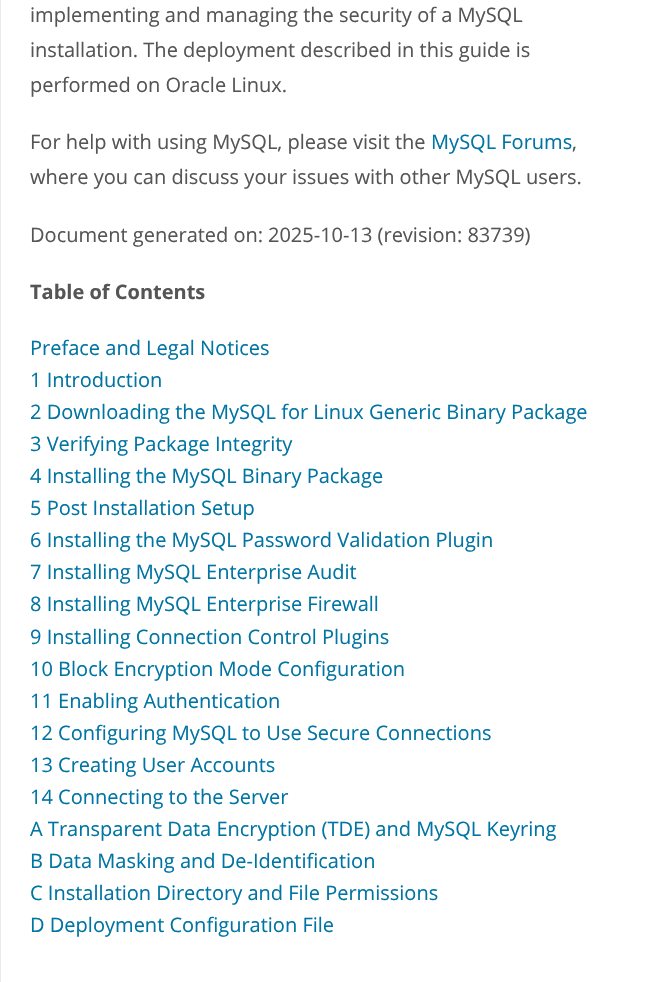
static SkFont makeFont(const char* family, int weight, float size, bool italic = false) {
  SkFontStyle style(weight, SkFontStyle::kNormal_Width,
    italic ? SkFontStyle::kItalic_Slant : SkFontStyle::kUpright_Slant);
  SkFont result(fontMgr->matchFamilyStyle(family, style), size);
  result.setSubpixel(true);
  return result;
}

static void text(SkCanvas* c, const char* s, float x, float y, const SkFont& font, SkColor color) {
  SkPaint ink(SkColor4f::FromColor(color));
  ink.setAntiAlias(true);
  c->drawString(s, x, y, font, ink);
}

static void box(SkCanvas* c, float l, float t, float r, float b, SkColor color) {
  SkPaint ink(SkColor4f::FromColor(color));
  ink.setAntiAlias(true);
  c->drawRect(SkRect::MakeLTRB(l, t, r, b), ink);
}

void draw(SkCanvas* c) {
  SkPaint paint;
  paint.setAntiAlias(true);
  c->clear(0xffffffff);
  box(c, 0, 0, 1, 982, 0xffe9eaeb);
  SkFont face1 = makeFont("Open Sans", 400, 20);
  text(c, "implementing and managing the security of a MySQL", 30, 22, face1, 0xff555555);
  text(c, "installation. The deployment described in this guide is", 30, 57, face1, 0xff555555);
  text(c, "performed on Oracle Linux.", 30, 92, face1, 0xff555555);
  text(c, "For help with using MySQL, please visit the", 30, 149, face1, 0xff555555);
  text(c, "MySQL Forums", 431, 149, face1, 0xff0074a3);
  text(c, ",", 572, 149, face1, 0xff555555);
  text(c, "where you can discuss your issues with other MySQL users.", 30, 184, face1, 0xff555555);
  text(c, "Document generated on:", 30, 242, face1, 0xff555555);
  text(c, "2025-10-13 (revision: 83739)", 268, 242, face1, 0xff555555);
  SkFont face2 = makeFont("Open Sans", 700, 20);
  text(c, "Table of Contents", 30, 299, face2, 0xff555555);
  text(c, "Preface and Legal Notices", 30, 355, face1, 0xff0074a3);
  text(c, "1 Introduction", 30, 387, face1, 0xff0074a3);
  text(c, "2 Downloading the MySQL for Linux Generic Binary Package", 30, 419, face1, 0xff0074a3);
  text(c, "3 Verifying Package Integrity", 30, 451, face1, 0xff0074a3);
  text(c, "4 Installing the MySQL Binary Package", 30, 483, face1, 0xff0074a3);
  text(c, "5 Post Installation Setup", 30, 515, face1, 0xff0074a3);
  text(c, "6 Installing the MySQL Password Validation Plugin", 30, 547, face1, 0xff0074a3);
  text(c, "7 Installing MySQL Enterprise Audit", 30, 579, face1, 0xff0074a3);
  text(c, "8 Installing MySQL Enterprise Firewall", 30, 611, face1, 0xff0074a3);
  text(c, "9 Installing Connection Control Plugins", 30, 644, face1, 0xff0074a3);
  text(c, "10 Block Encryption Mode Configuration", 30, 676, face1, 0xff0074a3);
  text(c, "11 Enabling Authentication", 30, 708, face1, 0xff0074a3);
  text(c, "12 Configuring MySQL to Use Secure Connections", 30, 740, face1, 0xff0074a3);
  text(c, "13 Creating User Accounts", 30, 772, face1, 0xff0074a3);
  text(c, "14 Connecting to the Server", 30, 804, face1, 0xff0074a3);
  text(c, "A Transparent Data Encryption (TDE) and MySQL Keyring", 30, 836, face1, 0xff0074a3);
  text(c, "B Data Masking and De-Identification", 30, 868, face1, 0xff0074a3);
  text(c, "C Installation Directory and File Permissions", 30, 900, face1, 0xff0074a3);
  text(c, "D Deployment Configuration File", 30, 932, face1, 0xff0074a3);
}
